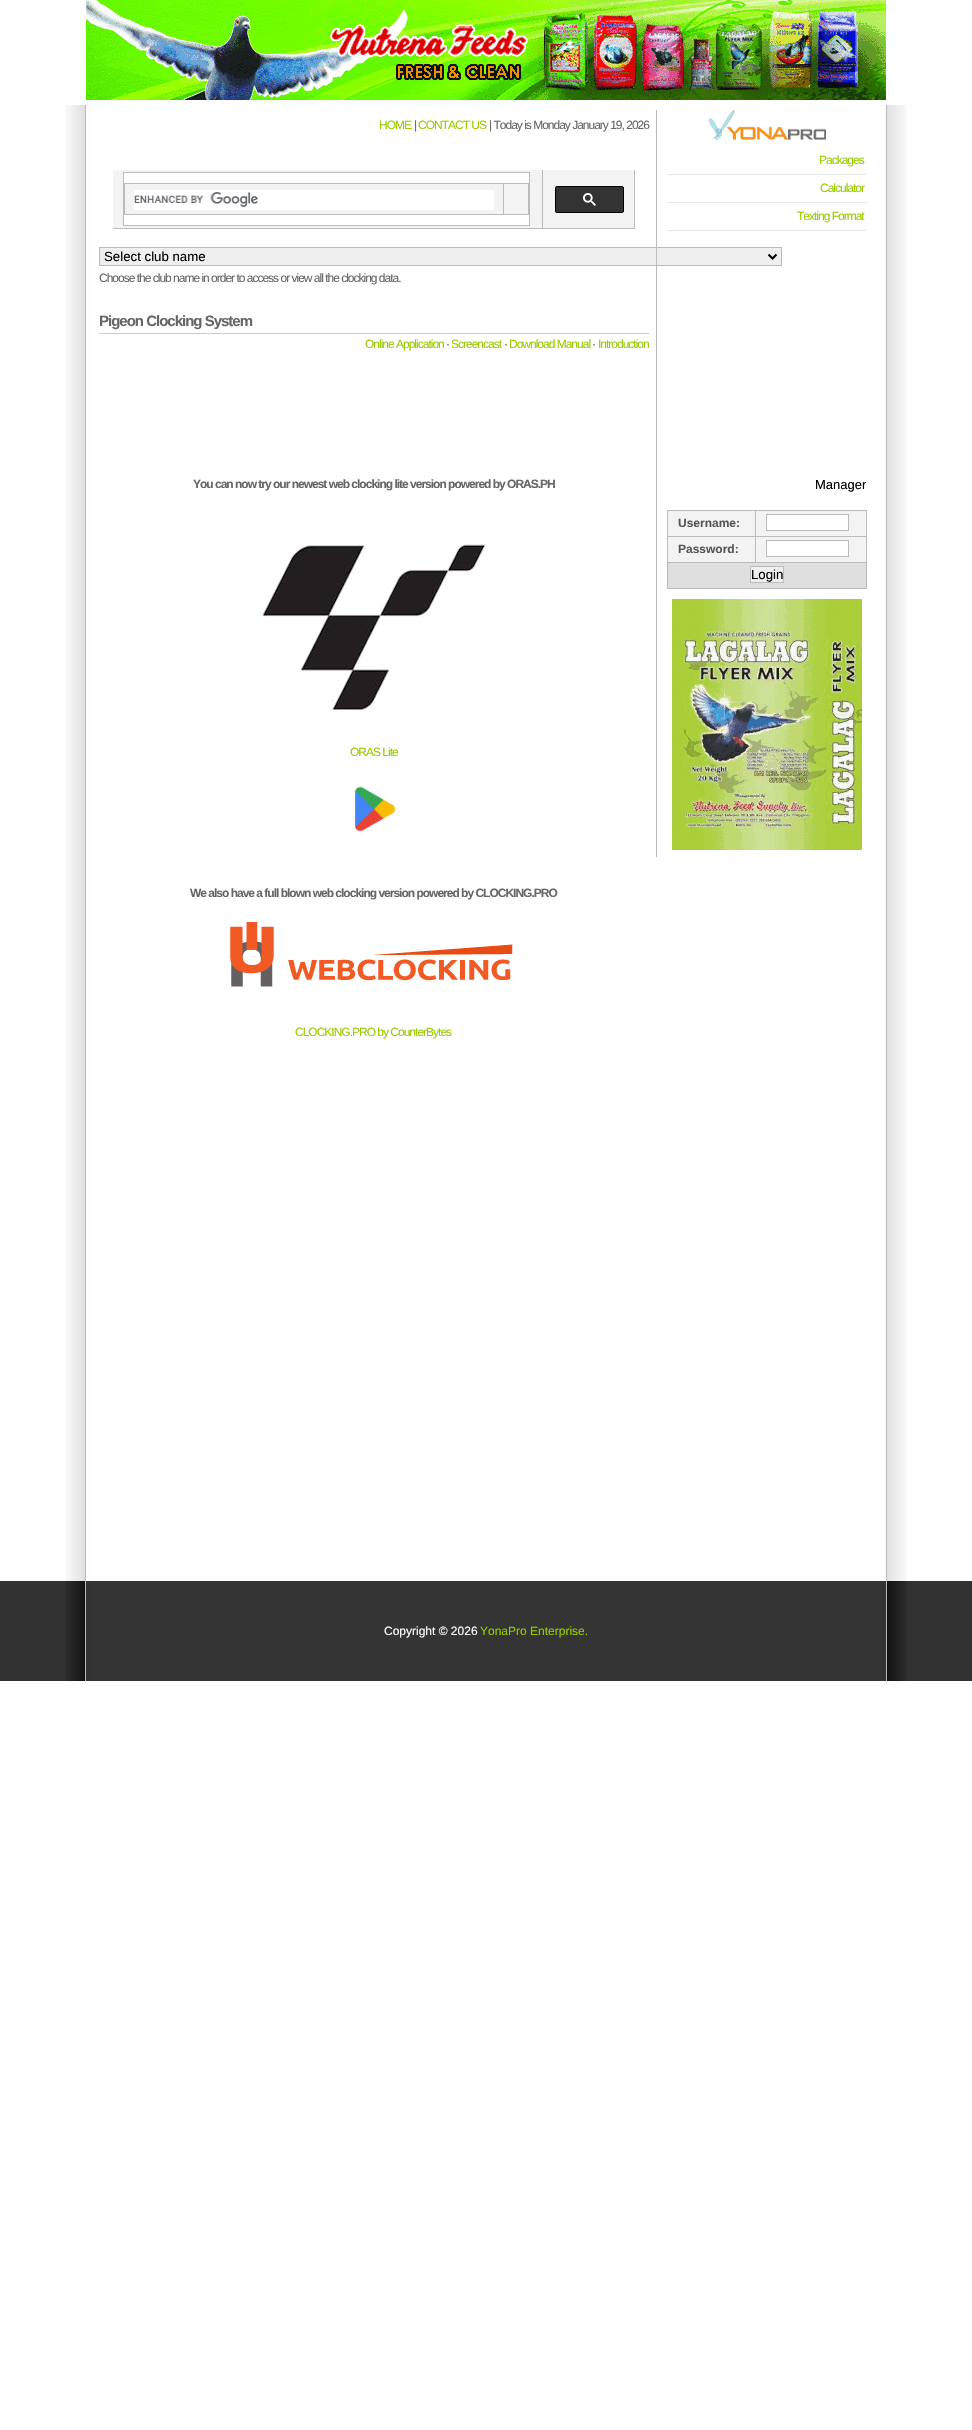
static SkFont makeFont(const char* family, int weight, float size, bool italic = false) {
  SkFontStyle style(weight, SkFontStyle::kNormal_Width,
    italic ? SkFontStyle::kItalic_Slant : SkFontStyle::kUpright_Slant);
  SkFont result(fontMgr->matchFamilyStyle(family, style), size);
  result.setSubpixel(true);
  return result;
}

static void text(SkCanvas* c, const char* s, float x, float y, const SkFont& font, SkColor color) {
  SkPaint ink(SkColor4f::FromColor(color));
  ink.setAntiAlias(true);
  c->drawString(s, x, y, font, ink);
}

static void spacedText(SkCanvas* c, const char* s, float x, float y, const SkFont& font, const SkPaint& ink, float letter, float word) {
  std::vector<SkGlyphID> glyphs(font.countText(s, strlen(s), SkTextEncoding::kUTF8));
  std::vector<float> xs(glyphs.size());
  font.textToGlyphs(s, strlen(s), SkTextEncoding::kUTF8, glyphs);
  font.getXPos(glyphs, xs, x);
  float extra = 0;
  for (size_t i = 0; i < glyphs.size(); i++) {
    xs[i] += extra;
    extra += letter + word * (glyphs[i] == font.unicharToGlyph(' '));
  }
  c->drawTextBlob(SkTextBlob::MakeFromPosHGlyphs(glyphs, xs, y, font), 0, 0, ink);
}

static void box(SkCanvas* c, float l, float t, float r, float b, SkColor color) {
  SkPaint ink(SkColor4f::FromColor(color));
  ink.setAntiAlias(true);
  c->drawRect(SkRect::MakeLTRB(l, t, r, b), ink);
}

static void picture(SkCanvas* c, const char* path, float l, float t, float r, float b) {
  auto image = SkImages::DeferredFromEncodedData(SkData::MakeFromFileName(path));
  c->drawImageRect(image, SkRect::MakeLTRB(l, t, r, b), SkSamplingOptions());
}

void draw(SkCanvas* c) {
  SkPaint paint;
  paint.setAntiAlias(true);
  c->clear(0xffffffff);
  picture(c, "img_01.png", 86, 0, 886, 100);
  picture(c, "img_02.png", 65, 105, 907, 1581);
  box(c, 886, 105, 887, 1581, 0xffbbbbbb);
  box(c, 85, 105, 86, 1581, 0xffbbbbbb);
  SkFont face1 = makeFont("Liberation Sans", 400, 12);
  paint.setColor(0xff99cc00);
  spacedText(c, "HOME", 379, 129, face1, paint, -1, 0);
  paint.setColor(0xff666666);
  spacedText(c, "|", 414, 129, face1, paint, -1, 0);
  paint.setColor(0xff99cc00);
  spacedText(c, "CONTACT US", 418, 129, face1, paint, -1, 0);
  paint.setColor(0xff666666);
  spacedText(c, "| Today is Monday January 19, 2026", 489, 129, face1, paint, -1, 0);
  box(c, 113, 170, 542, 228, 0xfff3f3f3);
  box(c, 542, 170, 543, 229, 0xffbbbbbb);
  box(c, 113, 228, 543, 229, 0xffbbbbbb);
  paint.setColor(0xffffffff);
  c->drawRect(SkRect::MakeLTRB(123.5f, 172.5f, 529.5f, 225.5f), paint);
  paint.setStyle(SkPaint::kStroke_Style);
  paint.setStrokeWidth(1);
  paint.setColor(0xffbbbbbb);
  c->drawRect(SkRect::MakeLTRB(123.5f, 172.5f, 529.5f, 225.5f), paint);
  box(c, 124, 183, 529, 184, 0xffbbbbbb);
  box(c, 124, 183, 125, 215, 0xffbbbbbb);
  box(c, 125, 184, 503, 214, 0xfff3f3f3);
  box(c, 503, 184, 504, 215, 0xffbbbbbb);
  box(c, 125, 214, 504, 215, 0xffbbbbbb);
  box(c, 134, 190, 494, 210, 0xffffffff);
  picture(c, "img_03.png", 134, 192, 258, 207);
  box(c, 504, 184, 528, 214, 0xfff3f3f3);
  box(c, 528, 184, 529, 215, 0xffbbbbbb);
  box(c, 504, 214, 529, 215, 0xffbbbbbb);
  box(c, 543, 170, 634, 228, 0xfff3f3f3);
  box(c, 634, 170, 635, 229, 0xffbbbbbb);
  box(c, 543, 228, 635, 229, 0xffbbbbbb);
  paint.setStyle(SkPaint::kFill_Style);
  paint.setColor(0xff333333);
  c->drawRoundRect(SkRect::MakeLTRB(555.5f, 186.5f, 623.5f, 212.5f), 1.5f, 1.5f, paint);
  paint.setStyle(SkPaint::kStroke_Style);
  paint.setColor(0xff000000);
  c->drawRoundRect(SkRect::MakeLTRB(555.5f, 186.5f, 623.5f, 212.5f), 1.5f, 1.5f, paint);
  picture(c, "img_04.png", 583, 193, 596, 206);
  paint.setStyle(SkPaint::kFill_Style);
  paint.setColor(0xffefefef);
  c->drawRect(SkRect::MakeLTRB(99.5f, 247.5f, 781.5f, 265.5f), paint);
  paint.setStyle(SkPaint::kStroke_Style);
  paint.setColor(0xffbbbbbb);
  c->drawRect(SkRect::MakeLTRB(99.5f, 247.5f, 781.5f, 265.5f), paint);
  paint.setStrokeWidth(2);
  paint.setColor(0xff000000);
  c->drawPath(SkPathBuilder().moveTo(768.5f, 254.5f).lineTo(772.5f, 258.5f).lineTo(776.5f, 254.5f).detach(), paint);
  SkFont face2 = makeFont("Liberation Sans", 400, 13.25f);
  text(c, "Select club name", 104, 261, face2, 0xff000000);
  paint.setStyle(SkPaint::kFill_Style);
  paint.setColor(0xff666666);
  spacedText(c, "Choose the club name in order to access or view all the clocking data.", 99, 282, face1, paint, -1, 0);
  box(c, 99, 333, 649, 334, 0xffcccccc);
  SkFont face3 = makeFont("Liberation Sans", 700, 15);
  spacedText(c, "Pigeon Clocking System", 99, 326, face3, paint, -1, 0);
  paint.setColor(0xff99cc00);
  spacedText(c, "Online Application", 365, 348, face1, paint, -1, 0);
  paint.setColor(0xff666666);
  spacedText(c, "·", 446, 348, face1, paint, -1, 0);
  paint.setColor(0xff99cc00);
  spacedText(c, "Screencast", 451, 348, face1, paint, -1, 0);
  paint.setColor(0xff666666);
  spacedText(c, "·", 504, 348, face1, paint, -1, 0);
  paint.setColor(0xff99cc00);
  spacedText(c, "Download Manual", 509, 348, face1, paint, -1, 0);
  paint.setColor(0xff666666);
  spacedText(c, "·", 592, 348, face1, paint, -1, 0);
  paint.setColor(0xff99cc00);
  spacedText(c, "Introduction", 598, 348, face1, paint, -1, 0);
  SkFont face4 = makeFont("Liberation Sans", 700, 12);
  paint.setColor(0xff666666);
  spacedText(c, "You can now try our newest web clocking lite version powered by ORAS.PH", 193, 488, face4, paint, -1, 0);
  picture(c, "img_05.png", 262, 542, 488, 713);
  paint.setColor(0xff99cc00);
  spacedText(c, "ORAS Lite", 350, 756, face1, paint, -1, 0);
  picture(c, "img_06.png", 354, 786, 396, 832);
  paint.setColor(0xff666666);
  spacedText(c, "We also have a full blown web clocking version powered by CLOCKING.PRO", 190, 897, face4, paint, -1, 0);
  picture(c, "img_07.png", 230, 922, 513, 987);
  paint.setColor(0xff99cc00);
  spacedText(c, "CLOCKING.PRO by CounterBytes", 295, 1036, face1, paint, -1, 0);
  box(c, 656, 110, 657, 857, 0xffbbbbbb);
  picture(c, "img_08.png", 709, 110, 826, 140);
  box(c, 667, 174, 867, 175, 0xffe9e9e9);
  spacedText(c, "Packages", 819, 164, face1, paint, -1, 0);
  box(c, 667, 202, 867, 203, 0xffe9e9e9);
  spacedText(c, "Calculator", 820, 192, face1, paint, -1, 0);
  box(c, 667, 230, 867, 231, 0xffe9e9e9);
  spacedText(c, "Texting Format", 797, 220, face1, paint, -1, 0);
  SkFont face5 = makeFont("Liberation Sans", 400, 13);
  text(c, "Manager", 815, 489, face5, 0xff000000);
  box(c, 667, 510, 867, 511, 0xffbbbbbb);
  box(c, 667, 510, 668, 589, 0xffbbbbbb);
  box(c, 668, 511, 755, 536, 0xfff3f3f3);
  box(c, 755, 511, 756, 563, 0xffbbbbbb);
  box(c, 668, 536, 756, 537, 0xffbbbbbb);
  text(c, "Username:", 678, 527, face4, 0xff555555);
  box(c, 756, 511, 866, 536, 0xfff3f3f3);
  box(c, 866, 511, 867, 589, 0xffbbbbbb);
  box(c, 756, 536, 867, 537, 0xffbbbbbb);
  paint.setColor(0xffffffff);
  c->drawRect(SkRect::MakeLTRB(766.5f, 514.5f, 848.5f, 530.5f), paint);
  paint.setStyle(SkPaint::kStroke_Style);
  paint.setStrokeWidth(1);
  paint.setColor(0xffbbbbbb);
  c->drawRect(SkRect::MakeLTRB(766.5f, 514.5f, 848.5f, 530.5f), paint);
  box(c, 668, 537, 755, 562, 0xfff3f3f3);
  box(c, 668, 562, 867, 563, 0xffbbbbbb);
  text(c, "Password:", 678, 553, face4, 0xff555555);
  box(c, 756, 537, 866, 562, 0xfff3f3f3);
  paint.setStyle(SkPaint::kFill_Style);
  paint.setColor(0xffffffff);
  c->drawRect(SkRect::MakeLTRB(766.5f, 540.5f, 848.5f, 556.5f), paint);
  paint.setStyle(SkPaint::kStroke_Style);
  paint.setColor(0xffbbbbbb);
  c->drawRect(SkRect::MakeLTRB(766.5f, 540.5f, 848.5f, 556.5f), paint);
  box(c, 668, 563, 866, 588, 0xffdfdfdf);
  box(c, 668, 588, 867, 589, 0xffbbbbbb);
  paint.setStyle(SkPaint::kFill_Style);
  paint.setColor(0xffefefef);
  c->drawRect(SkRect::MakeLTRB(750.5f, 566.5f, 783.5f, 582.5f), paint);
  paint.setStyle(SkPaint::kStroke_Style);
  paint.setColor(0xffbbbbbb);
  c->drawRect(SkRect::MakeLTRB(750.5f, 566.5f, 783.5f, 582.5f), paint);
  text(c, "Login", 751, 579, face2, 0xff000000);
  picture(c, "img_09.png", 672, 599, 862, 850);
  box(c, 0, 1581, 972, 1681, 0xff323232);
  picture(c, "img_10.png", 65, 1581, 907, 1681);
  box(c, 886, 1581, 887, 1681, 0xffbbbbbb);
  box(c, 85, 1581, 86, 1681, 0xffbbbbbb);
  text(c, "Copyright © 2026", 384, 1635, face1, 0xffffffff);
  text(c, "YonaPro Enterprise.", 480, 1635, face1, 0xff99cc00);
}
